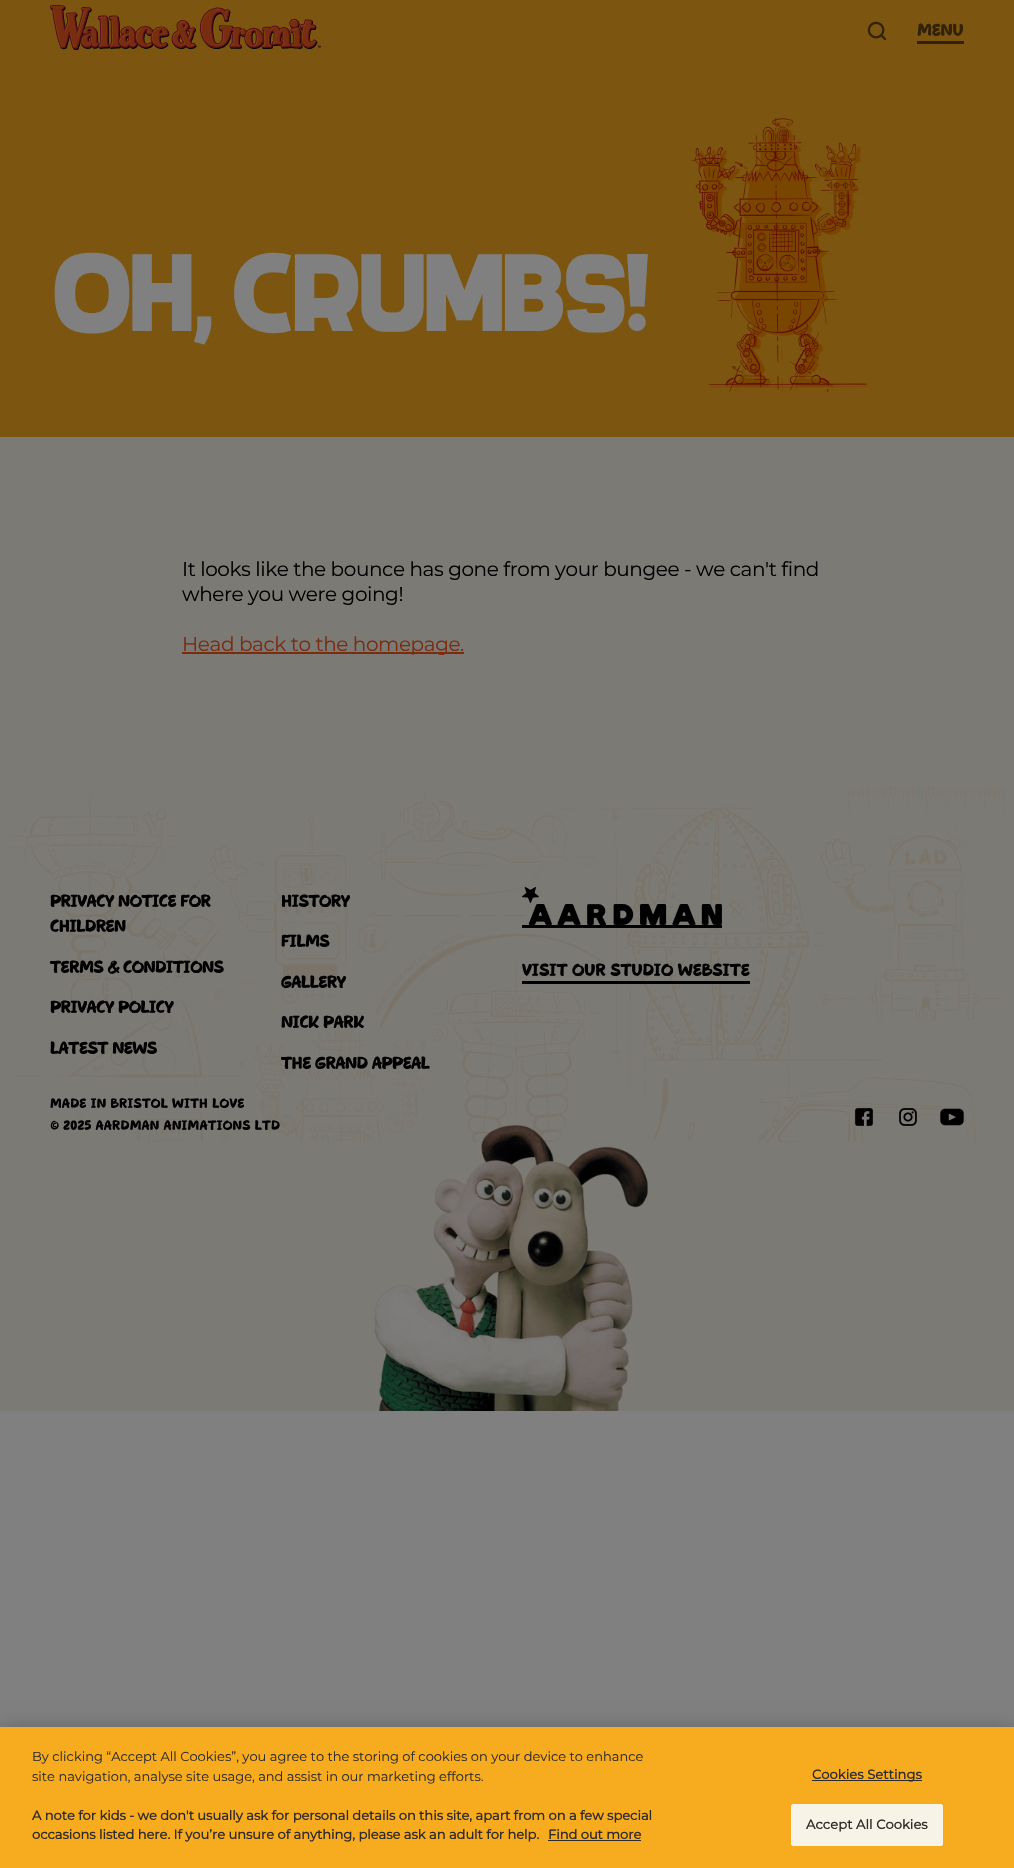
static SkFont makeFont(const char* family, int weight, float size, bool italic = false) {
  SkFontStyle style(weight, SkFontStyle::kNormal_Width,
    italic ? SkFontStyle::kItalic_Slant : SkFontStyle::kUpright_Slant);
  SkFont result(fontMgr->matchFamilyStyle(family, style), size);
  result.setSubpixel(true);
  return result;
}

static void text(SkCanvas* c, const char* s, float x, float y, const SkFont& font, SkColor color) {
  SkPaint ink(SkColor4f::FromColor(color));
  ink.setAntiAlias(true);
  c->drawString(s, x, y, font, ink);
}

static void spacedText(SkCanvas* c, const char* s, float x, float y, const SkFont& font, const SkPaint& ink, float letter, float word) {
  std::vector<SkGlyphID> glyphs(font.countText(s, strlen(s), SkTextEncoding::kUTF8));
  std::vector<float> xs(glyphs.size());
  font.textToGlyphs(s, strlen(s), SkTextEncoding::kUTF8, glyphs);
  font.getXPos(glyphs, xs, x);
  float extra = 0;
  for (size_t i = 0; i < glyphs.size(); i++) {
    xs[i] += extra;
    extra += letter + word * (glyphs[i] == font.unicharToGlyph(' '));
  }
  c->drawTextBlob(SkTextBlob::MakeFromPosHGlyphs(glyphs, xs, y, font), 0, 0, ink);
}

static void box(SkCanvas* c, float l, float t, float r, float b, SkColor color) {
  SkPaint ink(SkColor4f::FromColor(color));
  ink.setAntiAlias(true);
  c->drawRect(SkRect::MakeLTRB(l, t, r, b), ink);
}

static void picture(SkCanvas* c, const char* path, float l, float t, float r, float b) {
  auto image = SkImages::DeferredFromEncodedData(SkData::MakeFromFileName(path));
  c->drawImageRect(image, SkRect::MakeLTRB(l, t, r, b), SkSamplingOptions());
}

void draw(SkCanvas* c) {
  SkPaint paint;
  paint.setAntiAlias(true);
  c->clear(0xff808080);
  box(c, 0, 437, 1014, 1411, 0xff7c7a74);
  box(c, 0, 0, 1014, 437, 0xff7c5610);
  picture(c, "img_01.png", 50, 5, 321, 50);
  picture(c, "img_02.png", 867, 21, 887, 41);
  SkFont face1 = makeFont("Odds", 400, 18);
  text(c, "MENU", 917, 36, face1, 0xff322206);
  box(c, 917, 41, 964, 44, 0xff322206);
  SkFont face2 = makeFont("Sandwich", 400, 107.5f);
  paint.setColor(0xff808080);
  spacedText(c, "OH,", 52, 331, face2, paint, -2.25f, 0);
  spacedText(c, "CRUMBS!", 232, 331, face2, paint, -2.25f, 0);
  picture(c, "img_03.png", 692, 117, 868, 392);
  SkFont face3 = makeFont("Montserrat", 100, 20);
  paint.setColor(0xff000000);
  spacedText(c, "It looks like the bounce has gone from your bungee - we can't find", 182, 576, face3, paint, -0.4f, 0);
  spacedText(c, "where you were going!", 182, 601, face3, paint, -0.4f, 0);
  box(c, 182, 652, 464, 654, 0xff782d11);
  paint.setColor(0xff782d11);
  spacedText(c, "Head back to the homepage.", 182, 651, face3, paint, -0.4f, 0);
  picture(c, "img_04.png", 10, 786, 1005, 1142);
  paint.setColor(0xff000000);
  spacedText(c, "PRIVACY NOTICE FOR", 50, 907, face1, paint, -0.4f, 0);
  spacedText(c, "CHILDREN", 50, 932, face1, paint, -0.4f, 0);
  spacedText(c, "HISTORY", 281, 907, face1, paint, -0.4f, 0);
  spacedText(c, "FILMS", 281, 947, face1, paint, -0.4f, 0);
  spacedText(c, "TERMS & CONDITIONS", 50, 973, face1, paint, -0.4f, 0);
  spacedText(c, "GALLERY", 281, 988, face1, paint, -0.4f, 0);
  spacedText(c, "PRIVACY POLICY", 50, 1013, face1, paint, -0.4f, 0);
  spacedText(c, "NICK PARK", 281, 1028, face1, paint, -0.4f, 0);
  spacedText(c, "LATEST NEWS", 50, 1054, face1, paint, -0.4f, 0);
  spacedText(c, "THE GRAND APPEAL", 281, 1069, face1, paint, -0.4f, 0);
  box(c, 522, 925, 722, 928, 0xff000000);
  box(c, 522, 981, 750, 984, 0xff000000);
  picture(c, "img_05.png", 522, 887, 722, 925);
  text(c, "VISIT OUR STUDIO WEBSITE", 522, 976, face1, 0xff000000);
  SkFont face4 = makeFont("Odds", 400, 14);
  spacedText(c, "MADE IN BRISTOL WITH LOVE", 50, 1108, face4, paint, 0.4f, 0);
  spacedText(c, "© 2025 AARDMAN ANIMATIONS LTD", 50, 1130, face4, paint, 0.4f, 0);
  picture(c, "img_06.png", 855, 1108, 873, 1126);
  picture(c, "img_07.png", 899, 1108, 917, 1126);
  picture(c, "img_08.png", 940, 1108, 964, 1126);
  picture(c, "img_09.png", 374, 1125, 648, 1411);
  paint.setColor(0x33000000);
  paint.setMaskFilter(SkMaskFilter::MakeBlur(kNormal_SkBlurStyle, 9));
  c->drawRect(SkRect::MakeLTRB(0, 1727, 1014, 1868), paint);
  paint.setMaskFilter(nullptr);
  box(c, 0, 1727, 1014, 1868, 0xfff7ab1f);
  SkFont face5 = makeFont("Montserrat", 100, 13);
  text(c, "By clicking “Accept All Cookies”, you agree to the storing of cookies on your device to enhance", 32, 1761, face5, 0xff2f2b29);
  text(c, "site navigation, analyse site usage, and assist in our marketing efforts.", 32, 1781, face5, 0xff2f2b29);
  SkFont face6 = makeFont("Montserrat", 700, 13);
  text(c, "A note for kids - we don't usually ask for personal details on this site, apart from on a few special", 32, 1820, face6, 0xff2f2b29);
  text(c, "occasions listed here. If you’re unsure of anything, please ask an adult for help.", 32, 1839, face6, 0xff2f2b29);
  text(c, "Find out more", 548, 1839, face6, 0xff2f2b29);
  box(c, 548, 1840, 641, 1841, 0xff2f2b29);
  box(c, 812, 1780, 922, 1781, 0xff2f2b29);
  paint.setColor(0xff2f2b29);
  spacedText(c, "Cookies Settings", 812, 1779, face6, paint, 0.1f, 0);
  paint.setColor(0xfff8f3e7);
  c->drawRoundRect(SkRect::MakeLTRB(791.5f, 1804.5f, 942.5f, 1845.5f), 1.5f, 1.5f, paint);
  paint.setStyle(SkPaint::kStroke_Style);
  paint.setStrokeWidth(1);
  c->drawRoundRect(SkRect::MakeLTRB(791.5f, 1804.5f, 942.5f, 1845.5f), 1.5f, 1.5f, paint);
  paint.setStyle(SkPaint::kFill_Style);
  paint.setColor(0xff2f2b29);
  spacedText(c, "Accept All Cookies", 806, 1829, face6, paint, 0.1f, 0);
}
